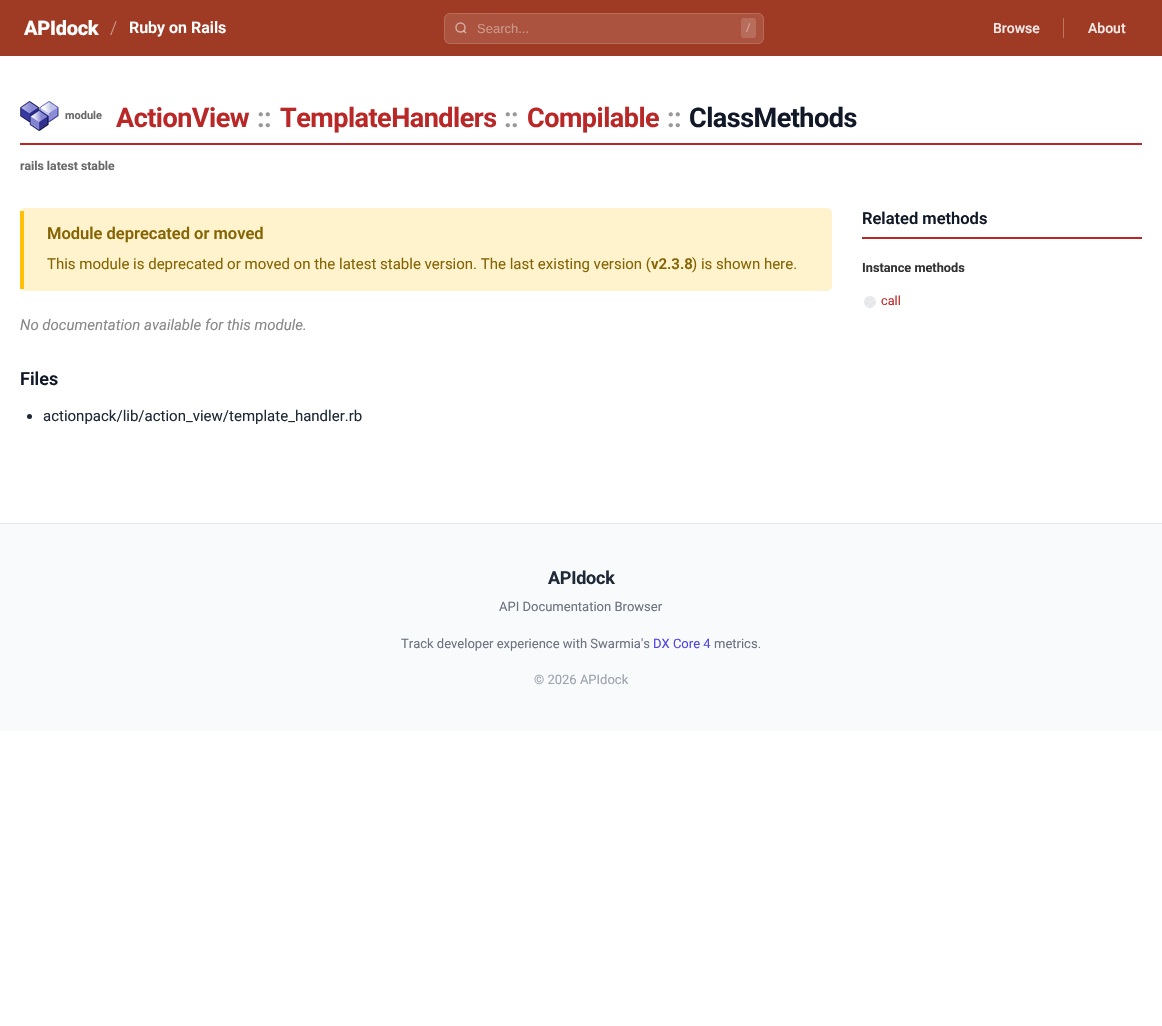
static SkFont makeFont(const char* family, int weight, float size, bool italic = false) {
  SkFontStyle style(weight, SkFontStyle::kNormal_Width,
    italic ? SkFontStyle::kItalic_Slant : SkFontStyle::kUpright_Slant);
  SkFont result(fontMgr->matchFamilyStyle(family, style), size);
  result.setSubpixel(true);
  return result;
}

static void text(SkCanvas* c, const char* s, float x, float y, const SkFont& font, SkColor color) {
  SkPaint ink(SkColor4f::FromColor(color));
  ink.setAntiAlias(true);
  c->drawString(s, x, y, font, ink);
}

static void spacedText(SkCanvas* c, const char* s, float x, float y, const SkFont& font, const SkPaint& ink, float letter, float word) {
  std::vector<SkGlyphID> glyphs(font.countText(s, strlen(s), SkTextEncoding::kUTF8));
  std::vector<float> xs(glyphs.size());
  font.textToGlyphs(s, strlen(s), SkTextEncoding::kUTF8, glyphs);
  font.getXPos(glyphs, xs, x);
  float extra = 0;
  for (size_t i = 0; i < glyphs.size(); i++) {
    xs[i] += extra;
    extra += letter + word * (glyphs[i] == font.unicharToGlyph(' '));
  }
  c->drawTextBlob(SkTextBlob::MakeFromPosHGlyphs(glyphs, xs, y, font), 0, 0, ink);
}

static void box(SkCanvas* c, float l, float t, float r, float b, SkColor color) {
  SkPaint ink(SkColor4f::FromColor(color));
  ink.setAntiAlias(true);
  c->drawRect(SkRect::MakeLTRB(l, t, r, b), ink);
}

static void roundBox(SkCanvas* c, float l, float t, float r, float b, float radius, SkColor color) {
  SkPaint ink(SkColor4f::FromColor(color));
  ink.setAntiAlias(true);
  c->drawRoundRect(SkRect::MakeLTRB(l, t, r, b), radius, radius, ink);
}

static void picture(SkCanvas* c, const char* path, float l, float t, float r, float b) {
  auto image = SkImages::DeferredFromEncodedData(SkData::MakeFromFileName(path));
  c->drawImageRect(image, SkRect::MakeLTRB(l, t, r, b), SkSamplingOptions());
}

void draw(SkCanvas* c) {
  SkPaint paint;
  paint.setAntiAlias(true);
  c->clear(0xffffffff);
  box(c, 0, 0, 1162, 56, 0xff9f3b25);
  SkFont face1 = makeFont("Roboto", 800, 20);
  paint.setColor(0xffffffff);
  spacedText(c, "APIdock", 24, 35, face1, paint, -0.25f, 0);
  SkFont face2 = makeFont("Roboto", 300, 18);
  text(c, "/", 110, 34, face2, 0xffcf9d92);
  SkFont face3 = makeFont("Roboto", 600, 16);
  text(c, "Ruby on Rails", 129, 33, face3, 0xffffffff);
  roundBox(c, 444, 13, 764, 44, 6, 0xffab533f);
  paint.setStyle(SkPaint::kStroke_Style);
  paint.setStrokeWidth(1);
  paint.setColor(0x26ffffff);
  c->drawRoundRect(SkRect::MakeLTRB(444.5f, 13.5f, 763.5f, 43.5f), 5.5f, 5.5f, paint);
  paint.setStrokeWidth(1.5f);
  paint.setColor(0xffd5a99f);
  c->drawCircle(460.5f, 27.5f, 4.5f, paint);
  paint.setColor(0x80ffffff);
  c->drawPath(SkPathBuilder().moveTo(466, 33).lineTo(463.5f, 30.5f).detach(), paint);
  SkFont face4 = makeFont("Liberation Sans", 400, 13);
  text(c, "Search...", 477, 33, face4, 0xffcd988c);
  roundBox(c, 741, 18, 756, 38, 3, 0xffb86d5c);
  SkFont face5 = makeFont("Roboto", 400, 11);
  text(c, "/", 746, 31, face5, 0xffd8afa5);
  SkFont face6 = makeFont("Roboto", 500, 14);
  text(c, "Browse", 993, 33, face6, 0xfff5ebe9);
  box(c, 1063, 18, 1064, 38, 0xffbc7666);
  text(c, "About", 1088, 33, face6, 0xfff5ebe9);
  box(c, 20, 143, 1142, 145, 0xffba2727);
  picture(c, "img_01.png", 20, 101, 59, 131);
  SkFont face7 = makeFont("Roboto", 700, 11);
  text(c, "module", 65, 119, face7, 0xff696969);
  SkFont face8 = makeFont("Roboto", 700, 27);
  paint.setStyle(SkPaint::kFill_Style);
  paint.setColor(0xffba2727);
  spacedText(c, "ActionView", 116, 127, face8, paint, -0.5f, 0);
  paint.setColor(0xff999999);
  spacedText(c, "::", 257, 127, face8, paint, -0.5f, 0);
  paint.setColor(0xffba2727);
  spacedText(c, "TemplateHandlers", 280, 127, face8, paint, -0.5f, 0);
  paint.setColor(0xff999999);
  spacedText(c, "::", 504, 127, face8, paint, -0.5f, 0);
  paint.setColor(0xffba2727);
  spacedText(c, "Compilable", 527, 127, face8, paint, -0.5f, 0);
  paint.setColor(0xff999999);
  spacedText(c, "::", 667, 127, face8, paint, -0.5f, 0);
  paint.setColor(0xff111827);
  spacedText(c, "ClassMethods", 689, 127, face8, paint, -0.5f, 0);
  SkFont face9 = makeFont("Roboto", 700, 12.25f);
  text(c, "rails latest stable", 20, 170, face9, 0xff696969);
  roundBox(c, 20, 208, 832, 291, 5, 0xfffff3cd);
  box(c, 20, 211, 24, 289, 0xffffc107);
  SkFont face10 = makeFont("Roboto", 600, 16.5f);
  text(c, "Module deprecated or moved", 47, 239, face10, 0xff856404);
  SkFont face11 = makeFont("Roboto", 400, 15);
  text(c, "This module is deprecated or moved on the latest stable version. The last existing version (", 47, 269, face11, 0xff856404);
  SkFont face12 = makeFont("Roboto", 600, 15);
  text(c, "v2.3.8", 651, 269, face12, 0xff856404);
  text(c, ") is shown here.", 692, 269, face11, 0xff856404);
  SkFont face13 = makeFont("Roboto", 400, 15, true);
  text(c, "No documentation available for this module.", 20, 330, face13, 0xff888888);
  SkFont face14 = makeFont("Roboto", 600, 18);
  text(c, "Files", 20, 385, face14, 0xff111827);
  paint.setColor(0xff1f2937);
  c->drawCircle(29.5f, 416.5f, 2.5f, paint);
  text(c, "actionpack/lib/action_view/template_handler.rb", 43, 421, face11, 0xff1f2937);
  box(c, 862, 237, 1142, 239, 0xffba2727);
  text(c, "Related methods", 862, 224, face10, 0xff111827);
  SkFont face15 = makeFont("Roboto", 700, 12.75f);
  text(c, "Instance methods", 862, 272, face15, 0xff333333);
  picture(c, "img_02.png", 864, 296, 876, 308);
  SkFont face16 = makeFont("Roboto", 400, 12.75f);
  text(c, "call", 881, 305, face16, 0xffba2727);
  box(c, 0, 524, 1162, 731, 0xfff9fafb);
  box(c, 0, 523, 1162, 524, 0xffe5e7eb);
  SkFont face17 = makeFont("Roboto", 700, 18);
  spacedText(c, "APIdock", 548, 584, face17, paint, -0.25f, 0);
  SkFont face18 = makeFont("Roboto", 400, 13);
  text(c, "API Documentation Browser", 499, 611, face18, 0xff6b7280);
  text(c, "Track developer experience with Swarmia's", 401, 648, face18, 0xff6b7280);
  text(c, "DX Core 4", 653, 648, face18, 0xff4f46e5);
  text(c, "metrics.", 714, 648, face18, 0xff6b7280);
  text(c, "© 2026 APIdock", 534, 684, face18, 0xff9ca3af);
}
